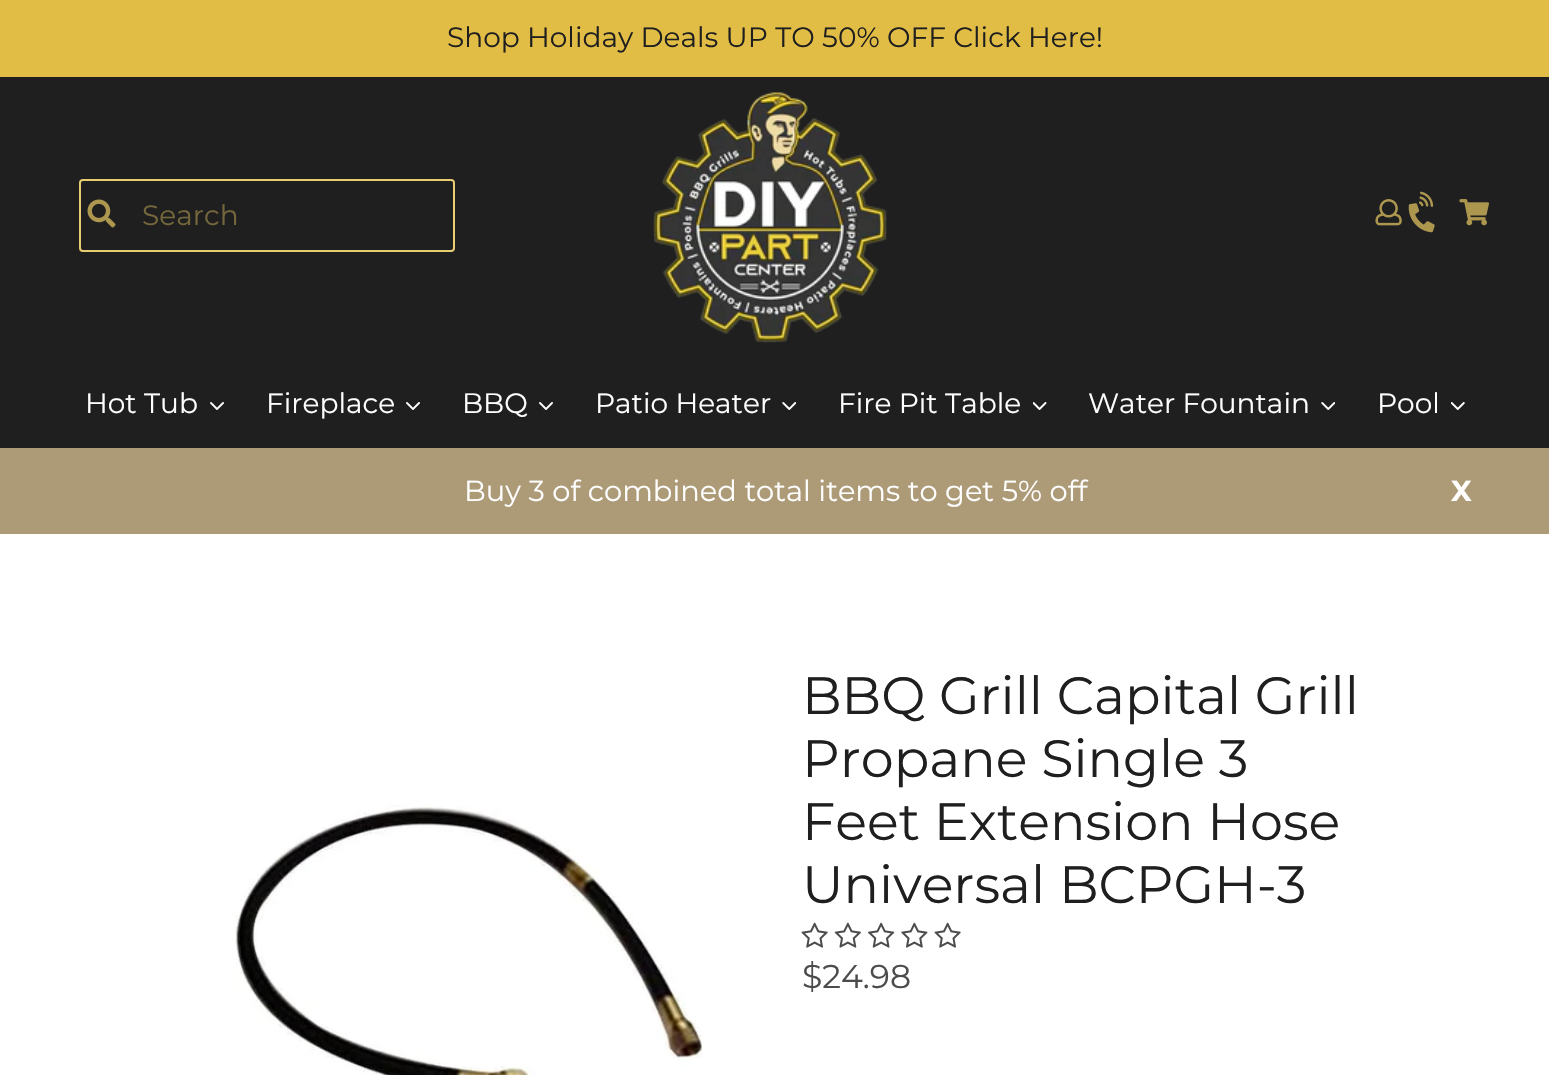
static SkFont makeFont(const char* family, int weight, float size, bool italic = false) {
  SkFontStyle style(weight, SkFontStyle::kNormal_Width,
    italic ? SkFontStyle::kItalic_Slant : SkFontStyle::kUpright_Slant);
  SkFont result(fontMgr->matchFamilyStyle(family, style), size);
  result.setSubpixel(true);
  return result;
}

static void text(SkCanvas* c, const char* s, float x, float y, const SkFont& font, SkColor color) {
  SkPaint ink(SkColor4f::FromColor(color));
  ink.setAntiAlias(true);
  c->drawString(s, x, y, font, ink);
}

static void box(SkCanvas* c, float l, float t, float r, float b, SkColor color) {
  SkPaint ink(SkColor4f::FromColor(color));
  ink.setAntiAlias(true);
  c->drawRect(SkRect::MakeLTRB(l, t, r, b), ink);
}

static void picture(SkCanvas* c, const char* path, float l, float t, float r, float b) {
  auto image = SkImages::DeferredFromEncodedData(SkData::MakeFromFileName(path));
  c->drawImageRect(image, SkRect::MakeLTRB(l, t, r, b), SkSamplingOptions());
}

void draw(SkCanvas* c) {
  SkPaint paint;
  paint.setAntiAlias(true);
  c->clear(0xffffffff);
  box(c, 0, 77, 1549, 448, 0xff1f1f1f);
  box(c, 0, 0, 1549, 77, 0xffe2bd46);
  SkFont face1 = makeFont("Montserrat", 100, 28);
  text(c, "Shop Holiday Deals UP TO 50% OFF Click Here!", 447, 47, face1, 0xff1f1f1f);
  paint.setStyle(SkPaint::kStroke_Style);
  paint.setStrokeWidth(2);
  paint.setColor(0xffe9cd72);
  c->drawRoundRect(SkRect::MakeLTRB(80, 180, 454, 251), 3, 3, paint);
  picture(c, "img_01.png", 87, 199, 116, 228);
  text(c, "Search", 142, 225, face1, 0xff74673c);
  picture(c, "img_02.png", 653, 92, 887, 343);
  picture(c, "img_03.png", 1375, 199, 1402, 226);
  picture(c, "img_04.png", 1408, 191, 1435, 233);
  picture(c, "img_05.png", 1459, 199, 1489, 226);
  text(c, "Hot Tub", 85, 413, face1, 0xffffffff);
  picture(c, "img_06.png", 210, 402, 224, 410);
  text(c, "Fireplace", 266, 413, face1, 0xffffffff);
  picture(c, "img_06.png", 406, 402, 420, 410);
  text(c, "BBQ", 462, 413, face1, 0xffffffff);
  picture(c, "img_06.png", 539, 402, 553, 410);
  text(c, "Patio Heater", 595, 413, face1, 0xffffffff);
  picture(c, "img_07.png", 782, 402, 796, 410);
  text(c, "Fire Pit Table", 838, 413, face1, 0xffffffff);
  picture(c, "img_08.png", 1033, 402, 1047, 410);
  text(c, "Water Fountain", 1088, 413, face1, 0xffffffff);
  picture(c, "img_07.png", 1321, 402, 1335, 410);
  text(c, "Pool", 1377, 413, face1, 0xffffffff);
  picture(c, "img_09.png", 1451, 402, 1465, 410);
  box(c, 0, 448, 1549, 534, 0xffad9a77);
  SkFont face2 = makeFont("Montserrat", 100, 28.9f);
  text(c, "Buy 3 of combined total items to get 5% off", 464, 501, face2, 0xffffffff);
  SkFont face3 = makeFont("Montserrat", 700, 28.9f);
  text(c, "X", 1451, 501, face3, 0xffffffff);
  picture(c, "img_10.png", 234, 805, 703, 1075);
  SkFont face4 = makeFont("Montserrat", 100, 52.5f);
  text(c, "BBQ Grill Capital Grill", 802, 714, face4, 0xff1f1f1f);
  text(c, "Propane Single 3", 802, 777, face4, 0xff1f1f1f);
  text(c, "Feet Extension Hose", 802, 840, face4, 0xff1f1f1f);
  text(c, "Universal BCPGH-3", 802, 903, face4, 0xff1f1f1f);
  picture(c, "img_11.png", 801, 922, 828, 948);
  picture(c, "img_12.png", 834, 922, 861, 948);
  picture(c, "img_13.png", 868, 922, 895, 948);
  picture(c, "img_14.png", 901, 922, 928, 948);
  picture(c, "img_11.png", 934, 922, 961, 948);
  SkFont face5 = makeFont("Montserrat", 100, 33);
  text(c, "$24.98", 802, 988, face5, 0xff4c4c4c);
}
